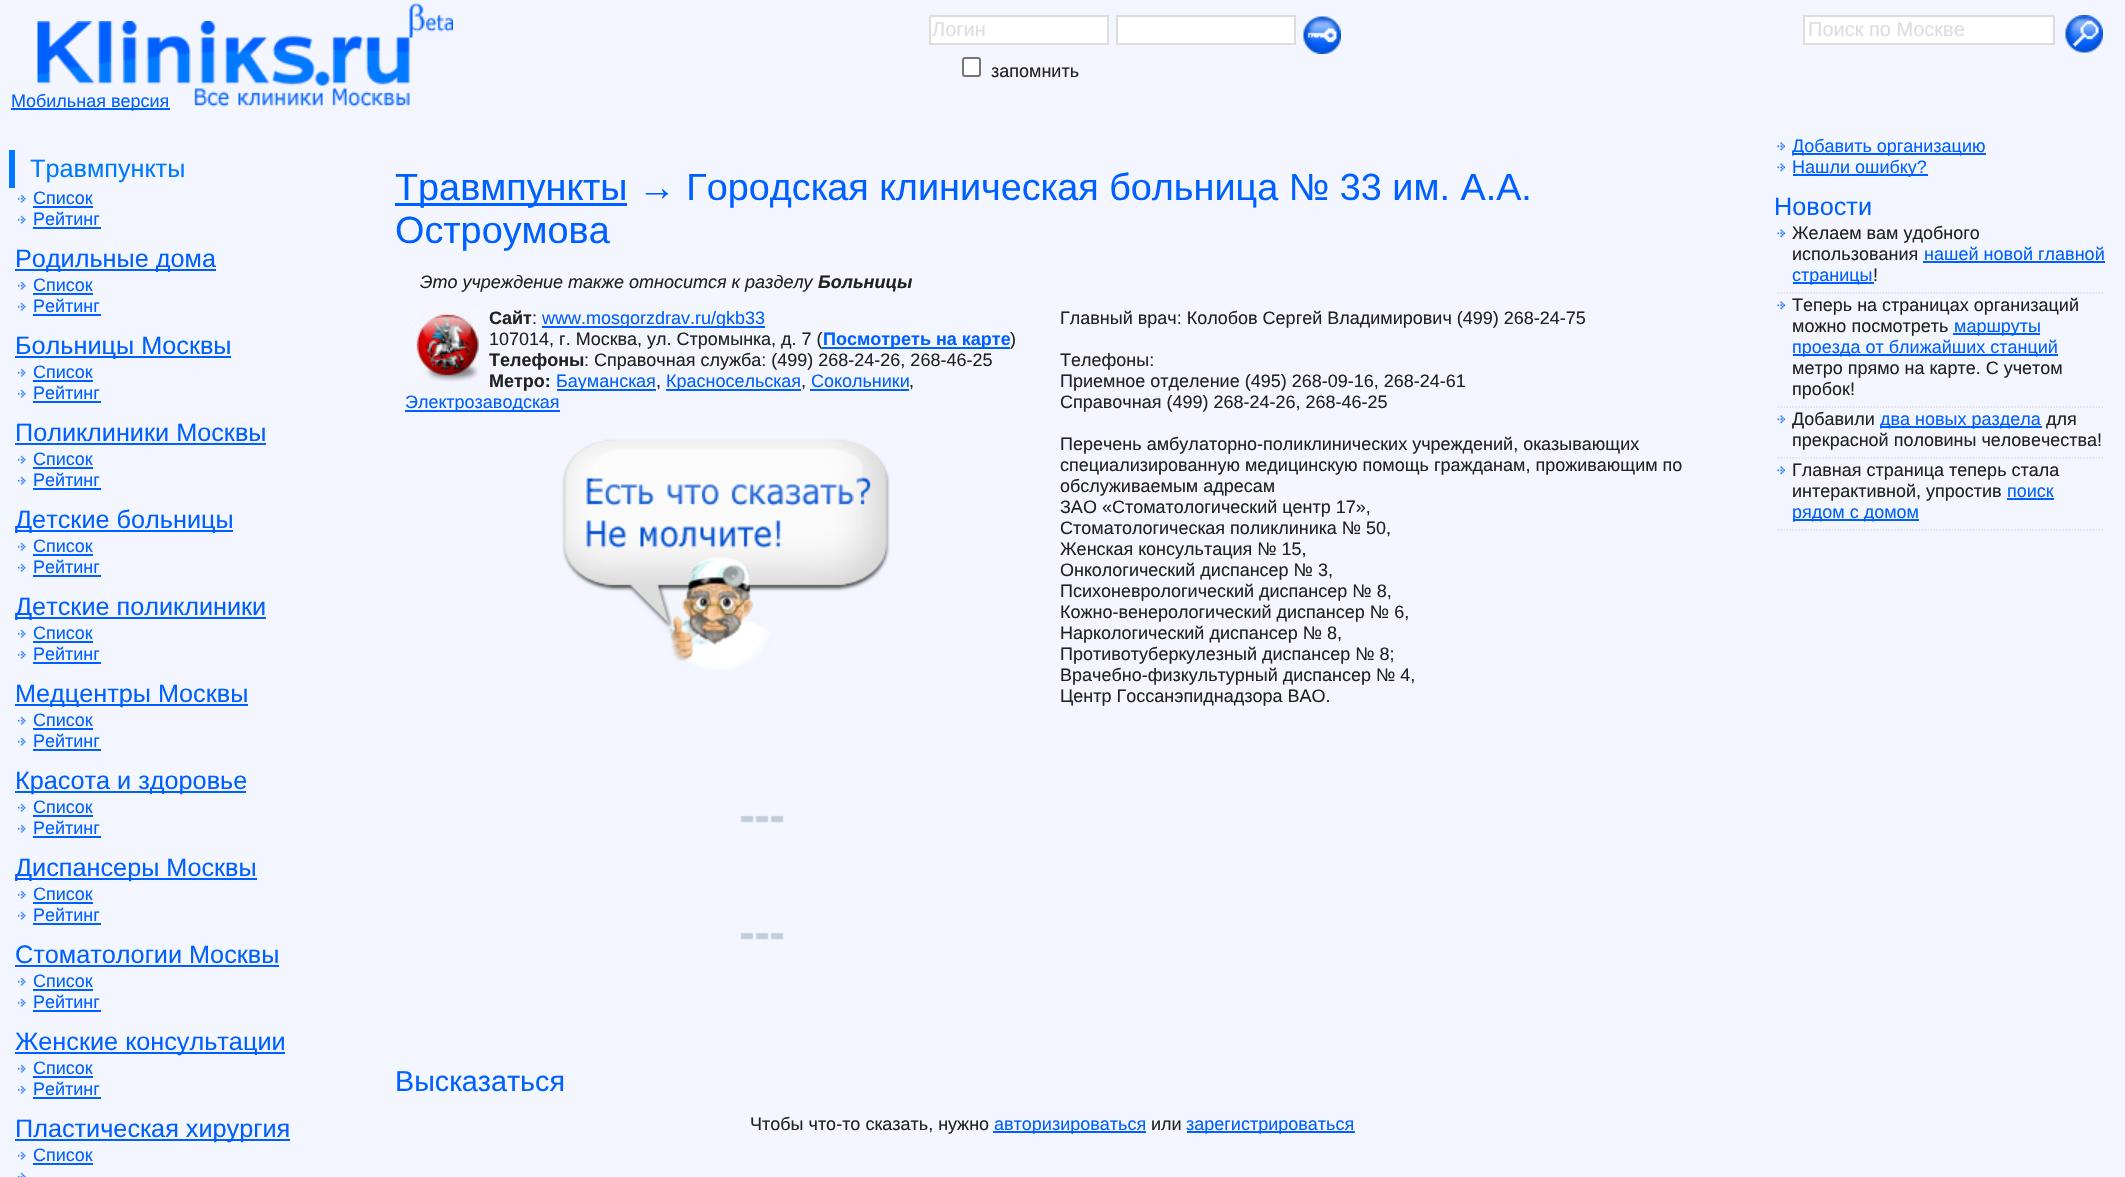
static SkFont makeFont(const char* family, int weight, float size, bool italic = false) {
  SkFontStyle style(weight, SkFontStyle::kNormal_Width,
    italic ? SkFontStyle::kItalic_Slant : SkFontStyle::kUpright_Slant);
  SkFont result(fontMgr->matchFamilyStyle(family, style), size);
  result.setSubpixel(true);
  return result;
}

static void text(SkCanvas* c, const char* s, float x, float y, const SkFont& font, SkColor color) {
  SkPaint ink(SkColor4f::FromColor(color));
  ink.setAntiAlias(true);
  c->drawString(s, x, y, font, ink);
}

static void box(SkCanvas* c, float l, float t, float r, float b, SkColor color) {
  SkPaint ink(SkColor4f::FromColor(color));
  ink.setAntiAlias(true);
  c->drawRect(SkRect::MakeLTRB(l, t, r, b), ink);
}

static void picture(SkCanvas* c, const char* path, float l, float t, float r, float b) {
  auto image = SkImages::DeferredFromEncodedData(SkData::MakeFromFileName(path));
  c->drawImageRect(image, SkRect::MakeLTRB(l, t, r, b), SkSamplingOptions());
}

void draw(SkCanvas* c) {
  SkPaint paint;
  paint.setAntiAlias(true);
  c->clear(0xfff4f6ff);
  paint.setColor(0xffffffff);
  c->drawRect(SkRect::MakeLTRB(930, 16, 1108, 44), paint);
  paint.setStyle(SkPaint::kStroke_Style);
  paint.setStrokeWidth(2);
  paint.setColor(0xffdddddd);
  c->drawRect(SkRect::MakeLTRB(930, 16, 1108, 44), paint);
  SkFont face1 = makeFont("Liberation Sans", 400, 20);
  text(c, "Логин", 932, 36, face1, 0xffdddddd);
  paint.setStyle(SkPaint::kFill_Style);
  paint.setColor(0xffffffff);
  c->drawRect(SkRect::MakeLTRB(1117, 16, 1295, 44), paint);
  paint.setStyle(SkPaint::kStroke_Style);
  paint.setColor(0xffdddddd);
  c->drawRect(SkRect::MakeLTRB(1117, 16, 1295, 44), paint);
  picture(c, "img_01.png", 1303, 16, 1341, 54);
  paint.setStyle(SkPaint::kFill_Style);
  paint.setColor(0xffffffff);
  c->drawRoundRect(SkRect::MakeLTRB(963, 58, 980, 76), 2, 2, paint);
  paint.setStyle(SkPaint::kStroke_Style);
  paint.setColor(0xff767676);
  c->drawRoundRect(SkRect::MakeLTRB(963, 58, 980, 76), 2, 2, paint);
  SkFont face2 = makeFont("Liberation Sans", 400, 18);
  text(c, "запомнить", 991, 77, face2, 0xff222222);
  paint.setStyle(SkPaint::kFill_Style);
  paint.setColor(0xffffffff);
  c->drawRect(SkRect::MakeLTRB(1804, 16, 2054, 44), paint);
  paint.setStyle(SkPaint::kStroke_Style);
  paint.setColor(0xffdddddd);
  c->drawRect(SkRect::MakeLTRB(1804, 16, 2054, 44), paint);
  text(c, "Поиск по Москве", 1808, 36, face1, 0xffdddddd);
  picture(c, "img_02.png", 2065, 15, 2103, 53);
  picture(c, "img_03.png", 37, 21, 410, 107);
  picture(c, "img_04.png", 409, 3, 453, 38);
  box(c, 11, 108, 170, 110, 0xff0060ff);
  text(c, "Мобильная версия", 11, 107, face2, 0xff0060ff);
  box(c, 9, 150, 15, 188, 0xff007aff);
  SkFont face3 = makeFont("Liberation Sans", 400, 25.25f);
  text(c, "Травмпункты", 30, 177, face3, 0xff007aff);
  picture(c, "img_05.png", 18, 194, 26, 203);
  text(c, "Список", 33, 204, face2, 0xff0060ff);
  box(c, 33, 206, 93, 208, 0xff0060ff);
  picture(c, "img_05.png", 18, 215, 26, 224);
  text(c, "Рейтинг", 33, 225, face2, 0xff0060ff);
  box(c, 33, 227, 101, 229, 0xff0060ff);
  box(c, 15, 269, 216, 271, 0xff0060ff);
  text(c, "Родильные дома", 15, 267, face3, 0xff0060ff);
  picture(c, "img_05.png", 18, 281, 26, 290);
  text(c, "Список", 33, 291, face2, 0xff0060ff);
  box(c, 33, 293, 93, 295, 0xff0060ff);
  picture(c, "img_05.png", 18, 302, 26, 311);
  text(c, "Рейтинг", 33, 312, face2, 0xff0060ff);
  box(c, 33, 314, 101, 316, 0xff0060ff);
  box(c, 15, 356, 231, 358, 0xff0060ff);
  text(c, "Больницы Москвы", 15, 354, face3, 0xff0060ff);
  picture(c, "img_05.png", 18, 368, 26, 377);
  text(c, "Список", 33, 378, face2, 0xff0060ff);
  box(c, 33, 380, 93, 382, 0xff0060ff);
  picture(c, "img_05.png", 18, 389, 26, 398);
  text(c, "Рейтинг", 33, 399, face2, 0xff0060ff);
  box(c, 33, 401, 101, 403, 0xff0060ff);
  text(c, "Поликлиники Москвы", 15, 441, face3, 0xff0060ff);
  box(c, 15, 443, 266, 445, 0xff0060ff);
  picture(c, "img_05.png", 18, 455, 26, 464);
  text(c, "Список", 33, 465, face2, 0xff0060ff);
  box(c, 33, 467, 93, 469, 0xff0060ff);
  picture(c, "img_05.png", 18, 476, 26, 485);
  text(c, "Рейтинг", 33, 486, face2, 0xff0060ff);
  box(c, 33, 488, 101, 490, 0xff0060ff);
  box(c, 15, 530, 233, 532, 0xff0060ff);
  text(c, "Детские больницы", 15, 528, face3, 0xff0060ff);
  picture(c, "img_05.png", 18, 542, 26, 551);
  text(c, "Список", 33, 552, face2, 0xff0060ff);
  box(c, 33, 554, 93, 556, 0xff0060ff);
  picture(c, "img_05.png", 18, 563, 26, 572);
  text(c, "Рейтинг", 33, 573, face2, 0xff0060ff);
  box(c, 33, 575, 101, 577, 0xff0060ff);
  box(c, 15, 617, 266, 619, 0xff0060ff);
  text(c, "Детские поликлиники", 15, 615, face3, 0xff0060ff);
  picture(c, "img_05.png", 18, 629, 26, 638);
  text(c, "Список", 33, 639, face2, 0xff0060ff);
  box(c, 33, 641, 93, 643, 0xff0060ff);
  picture(c, "img_05.png", 18, 650, 26, 659);
  text(c, "Рейтинг", 33, 660, face2, 0xff0060ff);
  box(c, 33, 662, 101, 664, 0xff0060ff);
  box(c, 15, 704, 248, 706, 0xff0060ff);
  text(c, "Медцентры Москвы", 15, 702, face3, 0xff0060ff);
  picture(c, "img_05.png", 18, 716, 26, 725);
  text(c, "Список", 33, 726, face2, 0xff0060ff);
  box(c, 33, 728, 93, 730, 0xff0060ff);
  picture(c, "img_05.png", 18, 737, 26, 746);
  text(c, "Рейтинг", 33, 747, face2, 0xff0060ff);
  box(c, 33, 749, 101, 751, 0xff0060ff);
  box(c, 15, 791, 246, 793, 0xff0060ff);
  text(c, "Красота и здоровье", 15, 789, face3, 0xff0060ff);
  picture(c, "img_05.png", 18, 803, 26, 812);
  text(c, "Список", 33, 813, face2, 0xff0060ff);
  box(c, 33, 815, 93, 817, 0xff0060ff);
  picture(c, "img_05.png", 18, 824, 26, 833);
  text(c, "Рейтинг", 33, 834, face2, 0xff0060ff);
  box(c, 33, 836, 101, 838, 0xff0060ff);
  box(c, 15, 878, 257, 880, 0xff0060ff);
  text(c, "Диспансеры Москвы", 15, 876, face3, 0xff0060ff);
  picture(c, "img_05.png", 18, 890, 26, 899);
  text(c, "Список", 33, 900, face2, 0xff0060ff);
  box(c, 33, 902, 93, 904, 0xff0060ff);
  picture(c, "img_05.png", 18, 911, 26, 920);
  text(c, "Рейтинг", 33, 921, face2, 0xff0060ff);
  box(c, 33, 923, 101, 925, 0xff0060ff);
  text(c, "Стоматологии Москвы", 15, 963, face3, 0xff0060ff);
  box(c, 15, 965, 279, 967, 0xff0060ff);
  picture(c, "img_05.png", 18, 977, 26, 986);
  text(c, "Список", 33, 987, face2, 0xff0060ff);
  box(c, 33, 989, 93, 991, 0xff0060ff);
  picture(c, "img_05.png", 18, 998, 26, 1007);
  text(c, "Рейтинг", 33, 1008, face2, 0xff0060ff);
  box(c, 33, 1010, 101, 1012, 0xff0060ff);
  box(c, 15, 1052, 285, 1054, 0xff0060ff);
  text(c, "Женские консультации", 15, 1050, face3, 0xff0060ff);
  picture(c, "img_05.png", 18, 1064, 26, 1073);
  text(c, "Список", 33, 1074, face2, 0xff0060ff);
  box(c, 33, 1076, 93, 1078, 0xff0060ff);
  picture(c, "img_05.png", 18, 1085, 26, 1094);
  text(c, "Рейтинг", 33, 1095, face2, 0xff0060ff);
  box(c, 33, 1097, 101, 1099, 0xff0060ff);
  box(c, 15, 1139, 290, 1141, 0xff0060ff);
  text(c, "Пластическая хирургия", 15, 1137, face3, 0xff0060ff);
  picture(c, "img_05.png", 18, 1151, 26, 1160);
  text(c, "Список", 33, 1161, face2, 0xff0060ff);
  box(c, 33, 1163, 93, 1165, 0xff0060ff);
  picture(c, "img_06.png", 18, 1172, 26, 1177);
  box(c, 395, 203, 627, 206, 0xff0060ff);
  SkFont face4 = makeFont("Liberation Sans", 400, 37.8f);
  text(c, "Травмпункты → Городская клиническая больница № 33 им. А.А.", 395, 200, face4, 0xff0060ff);
  text(c, "Остроумова", 395, 243, face4, 0xff0060ff);
  SkFont face5 = makeFont("Liberation Sans", 400, 18, true);
  text(c, "Это учреждение также относится к разделу", 420, 288, face5, 0xff222222);
  SkFont face6 = makeFont("Liberation Sans", 700, 18, true);
  text(c, "Больницы", 818, 288, face6, 0xff222222);
  picture(c, "img_07.png", 409, 307, 482, 382);
  SkFont face7 = makeFont("Liberation Sans", 700, 18);
  text(c, "Сайт", 489, 324, face7, 0xff222222);
  text(c, ":", 532, 324, face2, 0xff222222);
  box(c, 542, 326, 765, 328, 0xff0060ff);
  text(c, "www.mosgorzdrav.ru/gkb33", 542, 324, face2, 0xff0060ff);
  text(c, "107014, г. Москва, ул. Стромынка, д. 7 (", 489, 345, face2, 0xff222222);
  box(c, 822, 347, 1010, 349, 0xff0060ff);
  text(c, "Посмотреть на карте", 823, 345, face7, 0xff0060ff);
  text(c, ")", 1010, 345, face2, 0xff222222);
  text(c, "Телефоны", 489, 366, face7, 0xff222222);
  text(c, ": Справочная служба: (499) 268-24-26, 268-46-25", 584, 366, face2, 0xff222222);
  text(c, "Метро:", 489, 387, face7, 0xff222222);
  box(c, 557, 389, 656, 391, 0xff0060ff);
  text(c, "Бауманская", 556, 387, face2, 0xff0060ff);
  text(c, ",", 656, 387, face2, 0xff222222);
  box(c, 666, 389, 801, 391, 0xff0060ff);
  text(c, "Красносельская", 666, 387, face2, 0xff0060ff);
  text(c, ",", 801, 387, face2, 0xff222222);
  text(c, "Сокольники", 811, 387, face2, 0xff0060ff);
  box(c, 810, 389, 909, 391, 0xff0060ff);
  text(c, ",", 909, 387, face2, 0xff222222);
  box(c, 405, 410, 560, 412, 0xff0060ff);
  text(c, "Электрозаводская", 405, 408, face2, 0xff0060ff);
  picture(c, "img_08.png", 562, 439, 890, 670);
  text(c, "Главный врач: Колобов Сергей Владимирович (499) 268-24-75", 1060, 324, face2, 0xff222222);
  text(c, "Телефоны:", 1060, 366, face2, 0xff222222);
  text(c, "Приемное отделение (495) 268-09-16, 268-24-61", 1060, 387, face2, 0xff222222);
  text(c, "Справочная (499) 268-24-26, 268-46-25", 1060, 408, face2, 0xff222222);
  text(c, "Перечень амбулаторно-поликлинических учреждений, оказывающих", 1060, 450, face2, 0xff222222);
  text(c, "специализированную медицинскую помощь гражданам, проживающим по", 1060, 471, face2, 0xff222222);
  text(c, "обслуживаемым адресам", 1060, 492, face2, 0xff222222);
  text(c, "ЗАО «Стоматологический центр 17»,", 1060, 513, face2, 0xff222222);
  text(c, "Стоматологическая поликлиника № 50,", 1060, 534, face2, 0xff222222);
  text(c, "Женская консультация № 15,", 1060, 555, face2, 0xff222222);
  text(c, "Онкологический диспансер № 3,", 1060, 576, face2, 0xff222222);
  text(c, "Психоневрологический диспансер № 8,", 1060, 597, face2, 0xff222222);
  text(c, "Кожно-венерологический диспансер № 6,", 1060, 618, face2, 0xff222222);
  text(c, "Наркологический диспансер № 8,", 1060, 639, face2, 0xff222222);
  text(c, "Противотуберкулезный диспансер № 8;", 1060, 660, face2, 0xff222222);
  text(c, "Врачебно-физкультурный диспансер № 4,", 1060, 681, face2, 0xff222222);
  text(c, "Центр Госсанэпиднадзора ВАО.", 1060, 702, face2, 0xff222222);
  picture(c, "img_09.png", 740, 815, 784, 823);
  picture(c, "img_09.png", 740, 932, 784, 940);
  SkFont face8 = makeFont("Liberation Sans", 400, 28.75f);
  text(c, "Высказаться", 395, 1091, face8, 0xff0060ff);
  text(c, "Чтобы что-то сказать, нужно", 750, 1130, face2, 0xff222222);
  box(c, 993, 1131, 1146, 1133, 0xff0060ff);
  text(c, "авторизироваться", 994, 1130, face2, 0xff0060ff);
  text(c, "или", 1151, 1130, face2, 0xff222222);
  box(c, 1187, 1131, 1355, 1133, 0xff0060ff);
  text(c, "зарегистрироваться", 1186, 1130, face2, 0xff0060ff);
  picture(c, "img_10.png", 1777, 142, 1785, 151);
  box(c, 1793, 153, 1986, 155, 0xff0060ff);
  text(c, "Добавить организацию", 1792, 152, face2, 0xff0060ff);
  picture(c, "img_10.png", 1777, 163, 1785, 172);
  box(c, 1793, 174, 1928, 176, 0xff0060ff);
  text(c, "Нашли ошибку?", 1792, 173, face2, 0xff0060ff);
  text(c, "Новости", 1774, 215, face3, 0xff0060ff);
  picture(c, "img_10.png", 1777, 229, 1785, 238);
  paint.setStrokeWidth(1.5f);
  paint.setPathEffect(SkDashPathEffect::Make({{1.5f, 1.5f}}, 0));
  c->drawPath(SkPathBuilder().moveTo(1777.5f, 293).lineTo(2104.5f, 293).detach(), paint);
  paint.setPathEffect(nullptr);
  text(c, "Желаем вам удобного", 1792, 239, face2, 0xff222222);
  text(c, "использования", 1792, 260, face2, 0xff222222);
  text(c, "нашей новой главной", 1924, 260, face2, 0xff0060ff);
  box(c, 1923, 261, 2105, 263, 0xff0060ff);
  box(c, 1793, 282, 1874, 284, 0xff0060ff);
  text(c, "страницы", 1792, 281, face2, 0xff0060ff);
  text(c, "!", 1873, 281, face2, 0xff222222);
  picture(c, "img_10.png", 1777, 301, 1785, 310);
  paint.setPathEffect(SkDashPathEffect::Make({{1.5f, 1.5f}}, 0));
  c->drawPath(SkPathBuilder().moveTo(1777.5f, 407).lineTo(2104.5f, 407).detach(), paint);
  paint.setPathEffect(nullptr);
  text(c, "Теперь на страницах организаций", 1792, 311, face2, 0xff222222);
  text(c, "можно посмотреть", 1792, 332, face2, 0xff222222);
  box(c, 1953, 333, 2040, 335, 0xff0060ff);
  text(c, "маршруты", 1954, 332, face2, 0xff0060ff);
  box(c, 1793, 354, 2058, 356, 0xff0060ff);
  text(c, "проезда от ближайших станций", 1792, 353, face2, 0xff0060ff);
  text(c, "метро прямо на карте. С учетом", 1792, 374, face2, 0xff222222);
  text(c, "пробок!", 1792, 395, face2, 0xff222222);
  picture(c, "img_10.png", 1777, 415, 1785, 424);
  paint.setPathEffect(SkDashPathEffect::Make({{1.5f, 1.5f}}, 0));
  c->drawPath(SkPathBuilder().moveTo(1777.5f, 458).lineTo(2104.5f, 458).detach(), paint);
  paint.setPathEffect(nullptr);
  text(c, "Добавили", 1792, 425, face2, 0xff222222);
  box(c, 1880, 426, 2042, 428, 0xff0060ff);
  text(c, "два новых раздела", 1880, 425, face2, 0xff0060ff);
  text(c, "для", 2046, 425, face2, 0xff222222);
  text(c, "прекрасной половины человечества!", 1792, 446, face2, 0xff222222);
  picture(c, "img_10.png", 1777, 466, 1785, 475);
  paint.setPathEffect(SkDashPathEffect::Make({{1.5f, 1.5f}}, 0));
  c->drawPath(SkPathBuilder().moveTo(1777.5f, 530).lineTo(2104.5f, 530).detach(), paint);
  paint.setPathEffect(nullptr);
  text(c, "Главная страница теперь стала", 1792, 476, face2, 0xff222222);
  text(c, "интерактивной, упростив", 1792, 497, face2, 0xff222222);
  text(c, "поиск", 2007, 497, face2, 0xff0060ff);
  box(c, 2007, 498, 2054, 500, 0xff0060ff);
  box(c, 1793, 519, 1919, 521, 0xff0060ff);
  text(c, "рядом с домом", 1792, 518, face2, 0xff0060ff);
}
